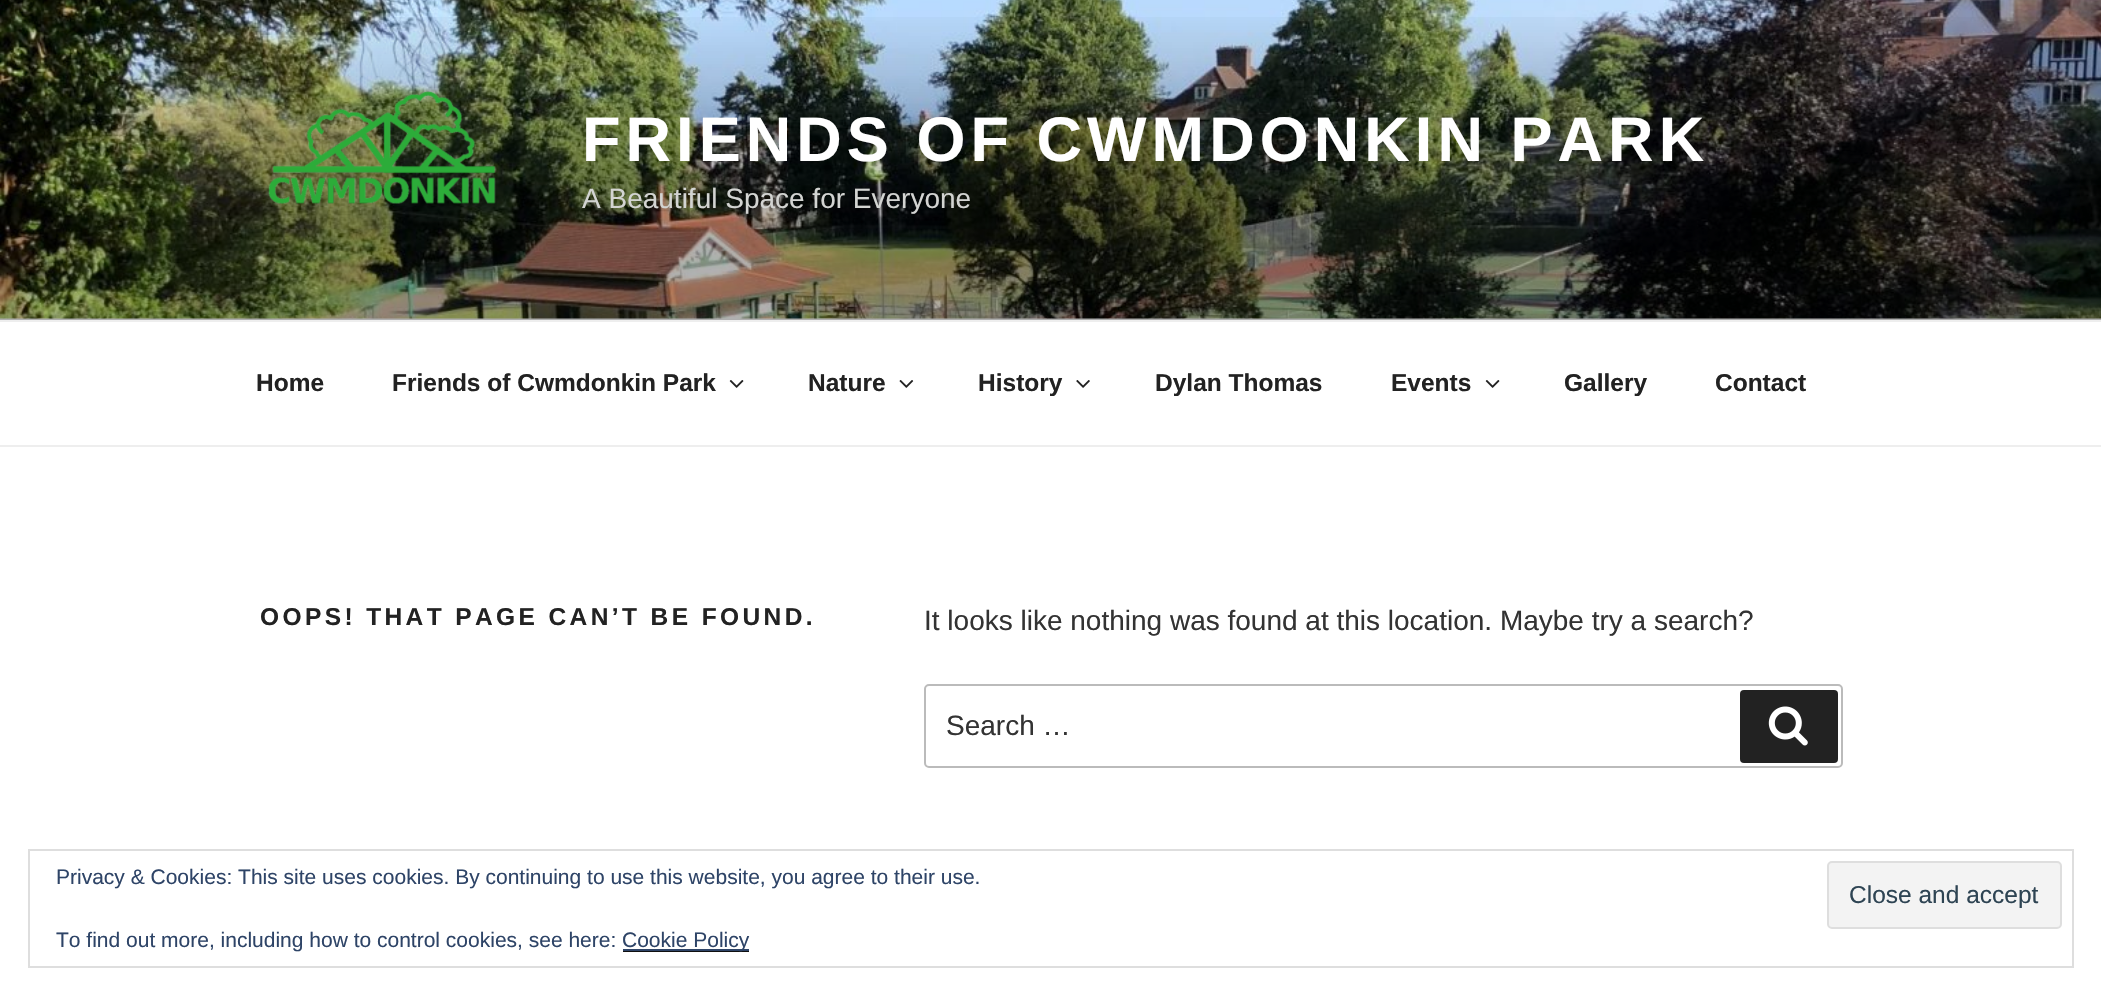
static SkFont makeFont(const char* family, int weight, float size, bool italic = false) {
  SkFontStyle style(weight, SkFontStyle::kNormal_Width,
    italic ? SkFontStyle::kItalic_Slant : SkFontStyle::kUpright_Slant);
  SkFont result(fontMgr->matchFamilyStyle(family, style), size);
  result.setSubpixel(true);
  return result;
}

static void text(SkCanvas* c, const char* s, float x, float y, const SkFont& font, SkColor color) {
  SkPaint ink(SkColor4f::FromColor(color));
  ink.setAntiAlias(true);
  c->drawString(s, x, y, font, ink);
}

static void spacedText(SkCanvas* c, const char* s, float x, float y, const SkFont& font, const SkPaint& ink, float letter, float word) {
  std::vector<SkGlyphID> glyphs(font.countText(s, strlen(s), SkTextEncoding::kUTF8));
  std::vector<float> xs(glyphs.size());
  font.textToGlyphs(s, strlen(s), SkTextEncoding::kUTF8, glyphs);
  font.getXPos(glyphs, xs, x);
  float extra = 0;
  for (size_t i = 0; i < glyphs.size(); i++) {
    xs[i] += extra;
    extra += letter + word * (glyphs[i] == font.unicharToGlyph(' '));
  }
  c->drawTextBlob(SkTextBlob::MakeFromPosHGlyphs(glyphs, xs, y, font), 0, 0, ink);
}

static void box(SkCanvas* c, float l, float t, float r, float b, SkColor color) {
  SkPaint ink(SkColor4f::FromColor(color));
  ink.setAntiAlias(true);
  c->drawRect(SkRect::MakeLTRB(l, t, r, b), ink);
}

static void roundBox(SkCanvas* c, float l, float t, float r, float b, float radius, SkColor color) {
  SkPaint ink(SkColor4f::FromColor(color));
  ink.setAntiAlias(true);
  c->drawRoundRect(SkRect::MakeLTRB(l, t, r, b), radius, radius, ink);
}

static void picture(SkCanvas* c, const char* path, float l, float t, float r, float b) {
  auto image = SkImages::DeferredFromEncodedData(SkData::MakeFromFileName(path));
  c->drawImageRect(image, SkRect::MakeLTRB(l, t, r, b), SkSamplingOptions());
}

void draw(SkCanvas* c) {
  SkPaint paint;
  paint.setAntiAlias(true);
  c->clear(0xffffffff);
  box(c, 0, 318, 2101, 320, 0xfffafafa);
  picture(c, "img_01.png", 0, 0, 2101, 319);
  {
    const SkColor colors[] = {0x00000000, 0x4d000000, 0x4d000000};
    const float stops[] = {0, 0.75f, 1};
    const SkPoint ends[] = {{1051, 0}, {1051, 320}};
    paint.setShader(SkGradientShader::MakeLinear(ends, colors, stops, 3, SkTileMode::kClamp));
    paint.setAlpha(255);
  }
  c->drawRect(SkRect::MakeLTRB(0, 17, 2101, 320), paint);
  picture(c, "img_02.png", 268, 91, 496, 204);
  SkFont face1 = makeFont("Liberation Sans", 700, 63);
  paint.setShader(nullptr);
  paint.setColor(0xffffffff);
  spacedText(c, "FRIENDS OF CWMDONKIN PARK", 582, 161, face1, paint, 5.05f, 0);
  SkFont face2 = makeFont("Liberation Sans", 400, 28);
  text(c, "A Beautiful Space for Everyone", 582, 208, face2, 0xffd3d4d2);
  box(c, 0, 320, 2101, 322, 0xffeeeeee);
  box(c, 0, 445, 2101, 447, 0xffeeeeee);
  SkFont face3 = makeFont("Liberation Sans", 700, 24.5f);
  text(c, "Home", 256, 391, face3, 0xff222222);
  text(c, "Friends of Cwmdonkin Park", 392, 391, face3, 0xff222222);
  picture(c, "img_03.png", 729, 380, 744, 388);
  text(c, "Nature", 808, 391, face3, 0xff222222);
  picture(c, "img_04.png", 899, 380, 914, 388);
  text(c, "History", 978, 391, face3, 0xff222222);
  picture(c, "img_05.png", 1076, 380, 1090, 388);
  text(c, "Dylan Thomas", 1155, 391, face3, 0xff222222);
  text(c, "Events", 1391, 391, face3, 0xff222222);
  picture(c, "img_03.png", 1485, 380, 1500, 388);
  text(c, "Gallery", 1564, 391, face3, 0xff222222);
  text(c, "Contact", 1715, 391, face3, 0xff222222);
  paint.setColor(0xff222222);
  spacedText(c, "OOPS! THAT PAGE CAN’T BE FOUND.", 260, 625, face3, paint, 3.4f, 0);
  text(c, "It looks like nothing was found at this location. Maybe try a search?", 924, 630, face2, 0xff333333);
  paint.setStyle(SkPaint::kStroke_Style);
  paint.setStrokeWidth(2);
  paint.setColor(0xffbbbbbb);
  c->drawRoundRect(SkRect::MakeLTRB(925, 685, 1842, 767), 4, 4, paint);
  text(c, "Search …", 946, 735, face2, 0xff333333);
  roundBox(c, 1740, 690, 1838, 763, 4, 0xff222222);
  picture(c, "img_06.png", 1768, 706, 1808, 746);
  paint.setColor(0xffdedede);
  c->drawRect(SkRect::MakeLTRB(29, 850, 2073, 967), paint);
  SkFont face4 = makeFont("Liberation Sans", 400, 21);
  text(c, "Privacy & Cookies: This site uses cookies. By continuing to use this website, you agree to their use.", 56, 884, face4, 0xff2e4467);
  paint.setStyle(SkPaint::kFill_Style);
  paint.setColor(0xfff3f3f3);
  c->drawRoundRect(SkRect::MakeLTRB(1828, 862, 2061, 928), 4, 4, paint);
  paint.setStyle(SkPaint::kStroke_Style);
  paint.setColor(0xffdedede);
  c->drawRoundRect(SkRect::MakeLTRB(1828, 862, 2061, 928), 4, 4, paint);
  SkFont face5 = makeFont("Liberation Sans", 400, 24.5f);
  text(c, "Close and accept", 1849, 903, face5, 0xff2e4453);
  text(c, "To find out more, including how to control cookies, see here:", 56, 947, face4, 0xff2e4467);
  box(c, 623, 951, 749, 952, 0xff0f0f0f);
  box(c, 623, 949, 749, 951, 0xff2e4467);
  text(c, "Cookie Policy", 622, 947, face4, 0xff2e4467);
}
